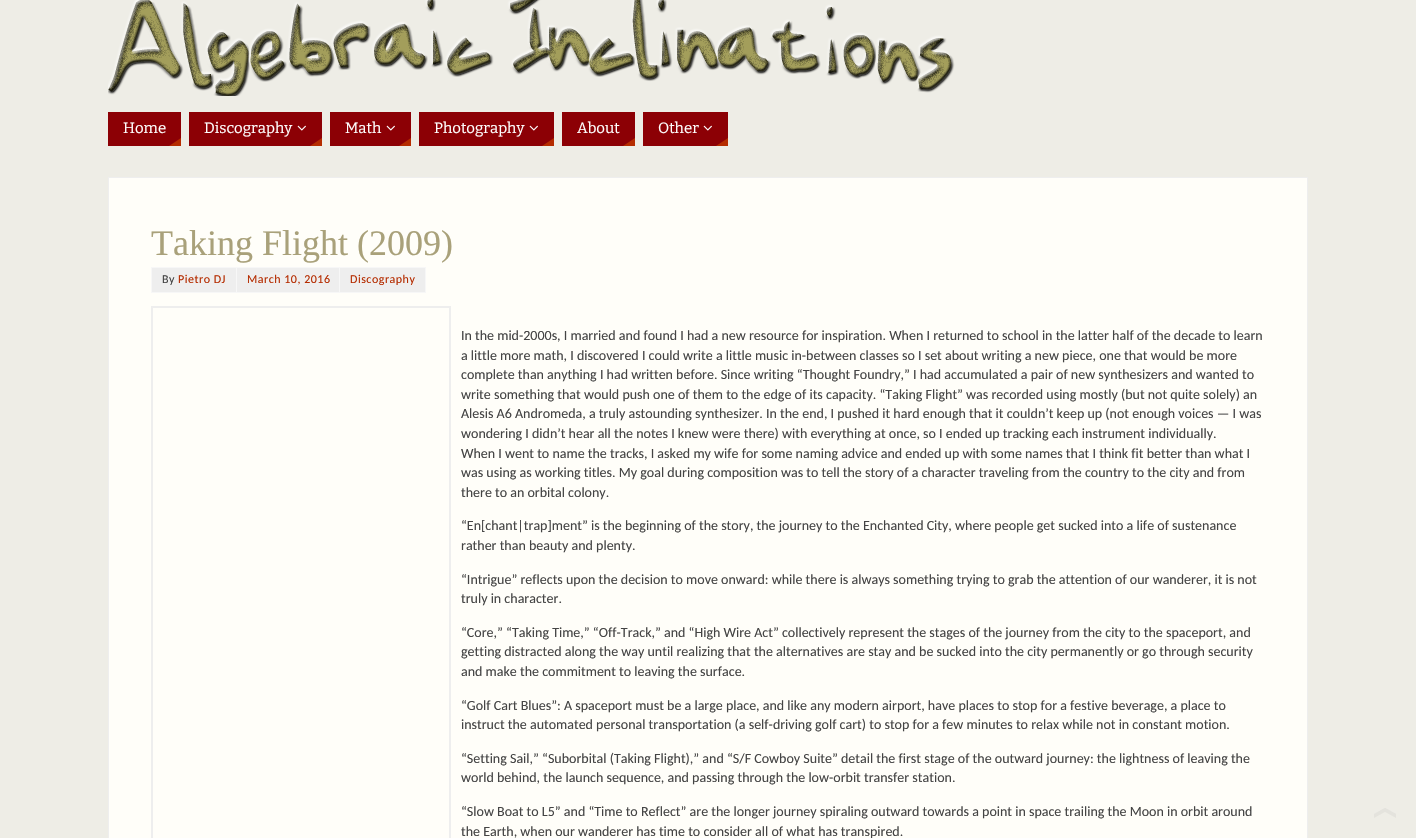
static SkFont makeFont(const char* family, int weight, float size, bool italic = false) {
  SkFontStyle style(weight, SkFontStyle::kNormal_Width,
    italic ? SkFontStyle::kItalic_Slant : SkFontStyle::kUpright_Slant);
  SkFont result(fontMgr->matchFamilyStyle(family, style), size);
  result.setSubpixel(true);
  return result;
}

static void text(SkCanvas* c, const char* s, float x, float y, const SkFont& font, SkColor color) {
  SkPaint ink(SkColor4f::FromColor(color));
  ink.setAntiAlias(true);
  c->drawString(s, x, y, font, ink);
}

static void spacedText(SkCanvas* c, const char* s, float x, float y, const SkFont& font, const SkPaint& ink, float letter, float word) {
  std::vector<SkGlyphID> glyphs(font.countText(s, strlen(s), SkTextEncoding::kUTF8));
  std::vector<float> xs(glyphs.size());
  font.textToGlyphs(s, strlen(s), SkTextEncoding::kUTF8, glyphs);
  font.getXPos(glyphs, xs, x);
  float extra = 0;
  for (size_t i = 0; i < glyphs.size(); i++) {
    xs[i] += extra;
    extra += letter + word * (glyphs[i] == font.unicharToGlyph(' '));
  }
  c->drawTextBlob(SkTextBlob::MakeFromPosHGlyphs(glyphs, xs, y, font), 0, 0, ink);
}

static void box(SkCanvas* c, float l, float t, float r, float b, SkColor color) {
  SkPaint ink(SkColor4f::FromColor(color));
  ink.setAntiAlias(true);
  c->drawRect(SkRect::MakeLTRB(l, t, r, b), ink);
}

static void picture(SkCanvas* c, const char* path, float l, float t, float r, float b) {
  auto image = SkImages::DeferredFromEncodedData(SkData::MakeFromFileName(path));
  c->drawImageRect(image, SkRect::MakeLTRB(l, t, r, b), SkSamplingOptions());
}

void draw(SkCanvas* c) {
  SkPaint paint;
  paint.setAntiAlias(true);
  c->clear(0xffeeede6);
  picture(c, "img_01.png", 108, 0, 955, 96);
  box(c, 108, 112, 181, 146, 0xff8c0005);
  SkFont face1 = makeFont("Bitter", 100, 15);
  text(c, "Home", 123, 133, face1, 0xffffffff);
  paint.setColor(0xffb52c00);
  c->drawPath(SkPathBuilder().moveTo(181, 146).lineTo(169, 146).lineTo(181, 138).close().detach(), paint);
  box(c, 189, 112, 322, 146, 0xff8c0005);
  text(c, "Discography", 204, 133, face1, 0xffffffff);
  picture(c, "img_02.png", 297, 125, 306, 131);
  c->drawPath(SkPathBuilder().moveTo(322, 146).lineTo(310, 146).lineTo(322, 138).close().detach(), paint);
  box(c, 330, 112, 411, 146, 0xff8c0005);
  text(c, "Math", 345, 133, face1, 0xffffffff);
  picture(c, "img_02.png", 386, 125, 395, 131);
  c->drawPath(SkPathBuilder().moveTo(411, 146).lineTo(399, 146).lineTo(411, 138).close().detach(), paint);
  box(c, 419, 112, 554, 146, 0xff8c0005);
  text(c, "Photography", 434, 133, face1, 0xffffffff);
  picture(c, "img_02.png", 529, 125, 538, 131);
  c->drawPath(SkPathBuilder().moveTo(554, 146).lineTo(542, 146).lineTo(554, 138).close().detach(), paint);
  box(c, 562, 112, 635, 146, 0xff8c0005);
  text(c, "About", 577, 133, face1, 0xffffffff);
  c->drawPath(SkPathBuilder().moveTo(635, 146).lineTo(623, 146).lineTo(635, 138).close().detach(), paint);
  box(c, 643, 112, 728, 146, 0xff8c0005);
  text(c, "Other", 658, 133, face1, 0xffffffff);
  picture(c, "img_02.png", 703, 125, 712, 131);
  c->drawPath(SkPathBuilder().moveTo(728, 146).lineTo(716, 146).lineTo(728, 138).close().detach(), paint);
  paint.setColor(0xfffffef9);
  c->drawRect(SkRect::MakeLTRB(108.5f, 177.5f, 1307.5f, 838.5f), paint);
  paint.setStyle(SkPaint::kStroke_Style);
  paint.setStrokeWidth(1);
  paint.setColor(0xffeeeeee);
  c->drawRect(SkRect::MakeLTRB(108.5f, 177.5f, 1307.5f, 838.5f), paint);
  SkFont face2 = makeFont("Liberation Serif", 400, 36);
  text(c, "Taking Flight (2009)", 151, 255, face2, 0xffa9a17a);
  paint.setStyle(SkPaint::kFill_Style);
  c->drawRect(SkRect::MakeLTRB(151.5f, 267.5f, 236.5f, 292.5f), paint);
  paint.setStyle(SkPaint::kStroke_Style);
  paint.setColor(0xfff7f7f7);
  c->drawRect(SkRect::MakeLTRB(151.5f, 267.5f, 236.5f, 292.5f), paint);
  SkFont face3 = makeFont("Carlito", 400, 12);
  paint.setStyle(SkPaint::kFill_Style);
  paint.setColor(0xff444444);
  spacedText(c, "By", 162, 283, face3, paint, 0.5f, 0);
  paint.setColor(0xffb52c00);
  spacedText(c, "Pietro DJ", 178, 283, face3, paint, 0.5f, 0);
  paint.setColor(0xffeeeeee);
  c->drawRect(SkRect::MakeLTRB(236.5f, 267.5f, 339.5f, 292.5f), paint);
  paint.setStyle(SkPaint::kStroke_Style);
  paint.setColor(0xfff7f7f7);
  c->drawRect(SkRect::MakeLTRB(236.5f, 267.5f, 339.5f, 292.5f), paint);
  paint.setStyle(SkPaint::kFill_Style);
  paint.setColor(0xffb52c00);
  spacedText(c, "March 10, 2016", 247, 283, face3, paint, 0.5f, 0);
  paint.setColor(0xffeeeeee);
  c->drawRect(SkRect::MakeLTRB(339.5f, 267.5f, 425.5f, 292.5f), paint);
  paint.setStyle(SkPaint::kStroke_Style);
  paint.setColor(0xfff7f7f7);
  c->drawRect(SkRect::MakeLTRB(339.5f, 267.5f, 425.5f, 292.5f), paint);
  paint.setStyle(SkPaint::kFill_Style);
  paint.setColor(0xffb52c00);
  spacedText(c, "Discography", 350, 283, face3, paint, 0.5f, 0);
  paint.setStyle(SkPaint::kStroke_Style);
  paint.setStrokeWidth(2);
  paint.setColor(0xffeeeeee);
  c->drawRect(SkRect::MakeLTRB(152, 307, 450, 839), paint);
  SkFont face4 = makeFont("Carlito", 400, 14);
  text(c, "In the mid-2000s, I married and found I had a new resource for inspiration. When I returned to school in the latter half of the decade to learn", 461, 340, face4, 0xff444444);
  text(c, "a little more math, I discovered I could write a little music in-between classes so I set about writing a new piece, one that would be more", 461, 360, face4, 0xff444444);
  text(c, "complete than anything I had written before. Since writing “Thought Foundry,” I had accumulated a pair of new synthesizers and wanted to", 461, 379, face4, 0xff444444);
  text(c, "write something that would push one of them to the edge of its capacity. “Taking Flight” was recorded using mostly (but not quite solely) an", 461, 399, face4, 0xff444444);
  text(c, "Alesis A6 Andromeda, a truly astounding synthesizer. In the end, I pushed it hard enough that it couldn’t keep up (not enough voices — I was", 461, 418, face4, 0xff444444);
  text(c, "wondering I didn’t hear all the notes I knew were there) with everything at once, so I ended up tracking each instrument individually.", 461, 438, face4, 0xff444444);
  text(c, "When I went to name the tracks, I asked my wife for some naming advice and ended up with some names that I think fit better than what I", 461, 458, face4, 0xff444444);
  text(c, "was using as working titles. My goal during composition was to tell the story of a character traveling from the country to the city and from", 461, 477, face4, 0xff444444);
  text(c, "there to an orbital colony.", 461, 497, face4, 0xff444444);
  text(c, "“En[chant|trap]ment” is the beginning of the story, the journey to the Enchanted City, where people get sucked into a life of sustenance", 461, 530, face4, 0xff444444);
  text(c, "rather than beauty and plenty.", 461, 550, face4, 0xff444444);
  text(c, "“Intrigue” reflects upon the decision to move onward: while there is always something trying to grab the attention of our wanderer, it is not", 461, 584, face4, 0xff444444);
  text(c, "truly in character.", 461, 603, face4, 0xff444444);
  text(c, "“Core,” “Taking Time,” “Off-Track,” and “High Wire Act” collectively represent the stages of the journey from the city to the spaceport, and", 461, 637, face4, 0xff444444);
  text(c, "getting distracted along the way until realizing that the alternatives are stay and be sucked into the city permanently or go through security", 461, 656, face4, 0xff444444);
  text(c, "and make the commitment to leaving the surface.", 461, 676, face4, 0xff444444);
  text(c, "“Golf Cart Blues”: A spaceport must be a large place, and like any modern airport, have places to stop for a festive beverage, a place to", 461, 710, face4, 0xff444444);
  text(c, "instruct the automated personal transportation (a self-driving golf cart) to stop for a few minutes to relax while not in constant motion.", 461, 729, face4, 0xff444444);
  text(c, "“Setting Sail,” “Suborbital (Taking Flight),” and “S/F Cowboy Suite” detail the first stage of the outward journey: the lightness of leaving the", 461, 763, face4, 0xff444444);
  text(c, "world behind, the launch sequence, and passing through the low-orbit transfer station.", 461, 782, face4, 0xff444444);
  text(c, "“Slow Boat to L5” and “Time to Reflect” are the longer journey spiraling outward towards a point in space trailing the Moon in orbit around", 461, 816, face4, 0xff444444);
  text(c, "the Earth, when our wanderer has time to consider all of what has transpired.", 461, 836, face4, 0xff444444);
  picture(c, "img_03.png", 1374, 808, 1396, 818);
}
